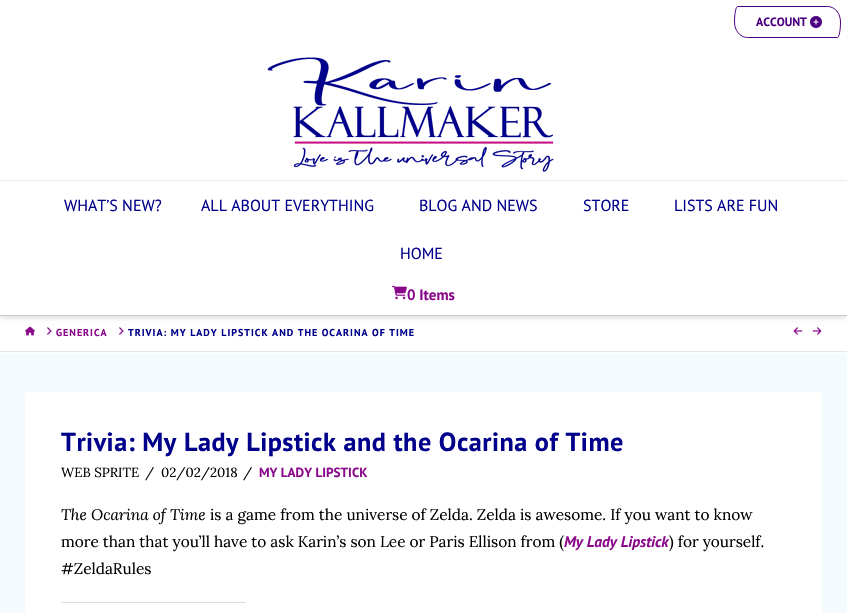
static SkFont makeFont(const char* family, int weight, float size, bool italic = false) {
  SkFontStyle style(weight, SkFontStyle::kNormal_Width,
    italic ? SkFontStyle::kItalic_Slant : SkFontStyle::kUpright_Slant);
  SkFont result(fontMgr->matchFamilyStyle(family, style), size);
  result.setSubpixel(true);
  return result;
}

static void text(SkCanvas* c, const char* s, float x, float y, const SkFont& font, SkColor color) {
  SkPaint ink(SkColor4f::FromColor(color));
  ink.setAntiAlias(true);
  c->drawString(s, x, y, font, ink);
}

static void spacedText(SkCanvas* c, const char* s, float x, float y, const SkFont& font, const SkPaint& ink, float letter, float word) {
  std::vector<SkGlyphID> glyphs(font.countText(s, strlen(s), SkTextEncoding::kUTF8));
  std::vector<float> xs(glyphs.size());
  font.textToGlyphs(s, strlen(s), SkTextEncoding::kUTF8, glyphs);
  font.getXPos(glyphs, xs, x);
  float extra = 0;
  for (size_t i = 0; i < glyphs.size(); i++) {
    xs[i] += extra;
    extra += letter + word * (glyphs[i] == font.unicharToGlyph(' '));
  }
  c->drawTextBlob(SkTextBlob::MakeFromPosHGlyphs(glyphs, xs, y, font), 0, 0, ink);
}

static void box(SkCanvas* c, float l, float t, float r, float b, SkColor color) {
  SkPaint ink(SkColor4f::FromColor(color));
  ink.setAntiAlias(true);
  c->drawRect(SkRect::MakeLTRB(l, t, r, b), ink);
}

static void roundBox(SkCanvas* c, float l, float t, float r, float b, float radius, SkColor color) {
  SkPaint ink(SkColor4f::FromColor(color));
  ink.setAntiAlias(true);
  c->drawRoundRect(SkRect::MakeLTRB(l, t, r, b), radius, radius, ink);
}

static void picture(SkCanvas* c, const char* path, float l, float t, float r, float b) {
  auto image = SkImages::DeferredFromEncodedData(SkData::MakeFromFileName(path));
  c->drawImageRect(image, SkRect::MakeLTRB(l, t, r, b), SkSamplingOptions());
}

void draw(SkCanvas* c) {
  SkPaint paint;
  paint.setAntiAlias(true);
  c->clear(0xfff4fbff);
  box(c, 0, 0, 847, 180, 0xffffffff);
  paint.setStyle(SkPaint::kStroke_Style);
  paint.setStrokeWidth(1);
  paint.setColor(0xff4b0082);
  c->drawPath(SkPathBuilder().moveTo(737.5f, 6.5f).lineTo(827.5f, 6.5f).cubicTo(835, 6.5f, 840.5f, 13.5f, 840.5f, 22).cubicTo(840.5f, 30.5f, 839, 37.5f, 837.5f, 37.5f).lineTo(747.5f, 37.5f).cubicTo(740, 37.5f, 734.5f, 30.5f, 734.5f, 22).cubicTo(734.5f, 13.5f, 736, 6.5f, 737.5f, 6.5f).close().detach(), paint);
  SkFont face1 = makeFont("PT Sans", 700, 12);
  text(c, "ACCOUNT", 756, 26, face1, 0xff4b0082);
  picture(c, "img_01.png", 810, 16, 822, 28);
  box(c, 0, 180, 847, 181, 0xfff2f2f2);
  picture(c, "img_02.png", 267, 57, 554, 172);
  box(c, 0, 316, 847, 351, 0xffffffff);
  picture(c, "img_04.png", 25, 326, 35, 336);
  paint.setStyle(SkPaint::kFill_Style);
  paint.setColor(0x21000000);
  paint.setMaskFilter(SkMaskFilter::MakeBlur(kNormal_SkBlurStyle, 2.5f));
  c->drawRect(SkRect::MakeLTRB(0, 183, 847, 318), paint);
  paint.setMaskFilter(nullptr);
  box(c, 0, 181, 847, 315, 0xffffffff);
  box(c, 0, 315, 847, 316, 0xffcccccc);
  SkFont face2 = makeFont("PT Sans", 400, 16);
  text(c, "WHAT’S NEW?", 64, 211, face2, 0xff00008b);
  text(c, "ALL ABOUT EVERYTHING", 201, 211, face2, 0xff00008b);
  text(c, "BLOG AND NEWS", 419, 211, face2, 0xff00008b);
  text(c, "STORE", 583, 211, face2, 0xff00008b);
  text(c, "LISTS ARE FUN", 674, 211, face2, 0xff00008b);
  text(c, "HOME", 400, 259, face2, 0xff00008b);
  picture(c, "img_03.png", 392, 285, 407, 300);
  SkFont face3 = makeFont("PT Sans", 700, 15);
  text(c, "0 Items", 407, 300, face3, 0xff8b088b);
  box(c, 0, 352, 847, 353, 0xfffcfeff);
  box(c, 0, 351, 847, 352, 0xffe6e6e6);
  picture(c, "img_05.png", 47, 327, 52, 335);
  SkFont face4 = makeFont("PT Sans", 700, 10);
  paint.setColor(0xff8b088b);
  spacedText(c, "GENERICA", 56, 336, face4, paint, 1, 0);
  picture(c, "img_05.png", 119, 327, 124, 335);
  paint.setColor(0xff00008b);
  spacedText(c, "TRIVIA: MY LADY LIPSTICK AND THE OCARINA OF TIME", 128, 336, face4, paint, 1, 0);
  picture(c, "img_06.png", 793, 327, 803, 335);
  picture(c, "img_07.png", 812, 327, 822, 335);
  roundBox(c, 25, 392, 822, 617, 4, 0xffffffff);
  SkFont face5 = makeFont("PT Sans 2", 700, 26.2f);
  spacedText(c, "Trivia: My Lady Lipstick and the Ocarina of Time", 61, 451, face5, paint, 0.5f, 0);
  SkFont face6 = makeFont("Lora", 400, 13.25f);
  text(c, "WEB SPRITE", 61, 477, face6, 0xff000000);
  text(c, "/", 145, 477, face6, 0xff000000);
  text(c, "02/02/2018", 161, 477, face6, 0xff000000);
  text(c, "/", 243, 477, face6, 0xff000000);
  SkFont face7 = makeFont("PT Sans", 700, 13.25f);
  text(c, "MY LADY LIPSTICK", 259, 477, face7, 0xff8b088b);
  SkFont face8 = makeFont("Lora", 400, 15.4f, true);
  text(c, "The Ocarina of Time", 61, 520, face8, 0xff000000);
  SkFont face9 = makeFont("Lora", 400, 15.4f);
  text(c, "is a game from the universe of Zelda. Zelda is awesome. If you want to know", 210, 520, face9, 0xff000000);
  text(c, "more than that you’ll have to ask Karin’s son Lee or Paris Ellison from (", 61, 547, face9, 0xff000000);
  SkFont face10 = makeFont("PT Sans", 700, 15.4f, true);
  text(c, "My Lady Lipstick", 564, 547, face10, 0xff8b088b);
  text(c, ") for yourself.", 669, 547, face9, 0xff000000);
  text(c, "#ZeldaRules", 61, 574, face9, 0xff000000);
  box(c, 61, 602, 246, 603, 0xffdcdcde);
}
